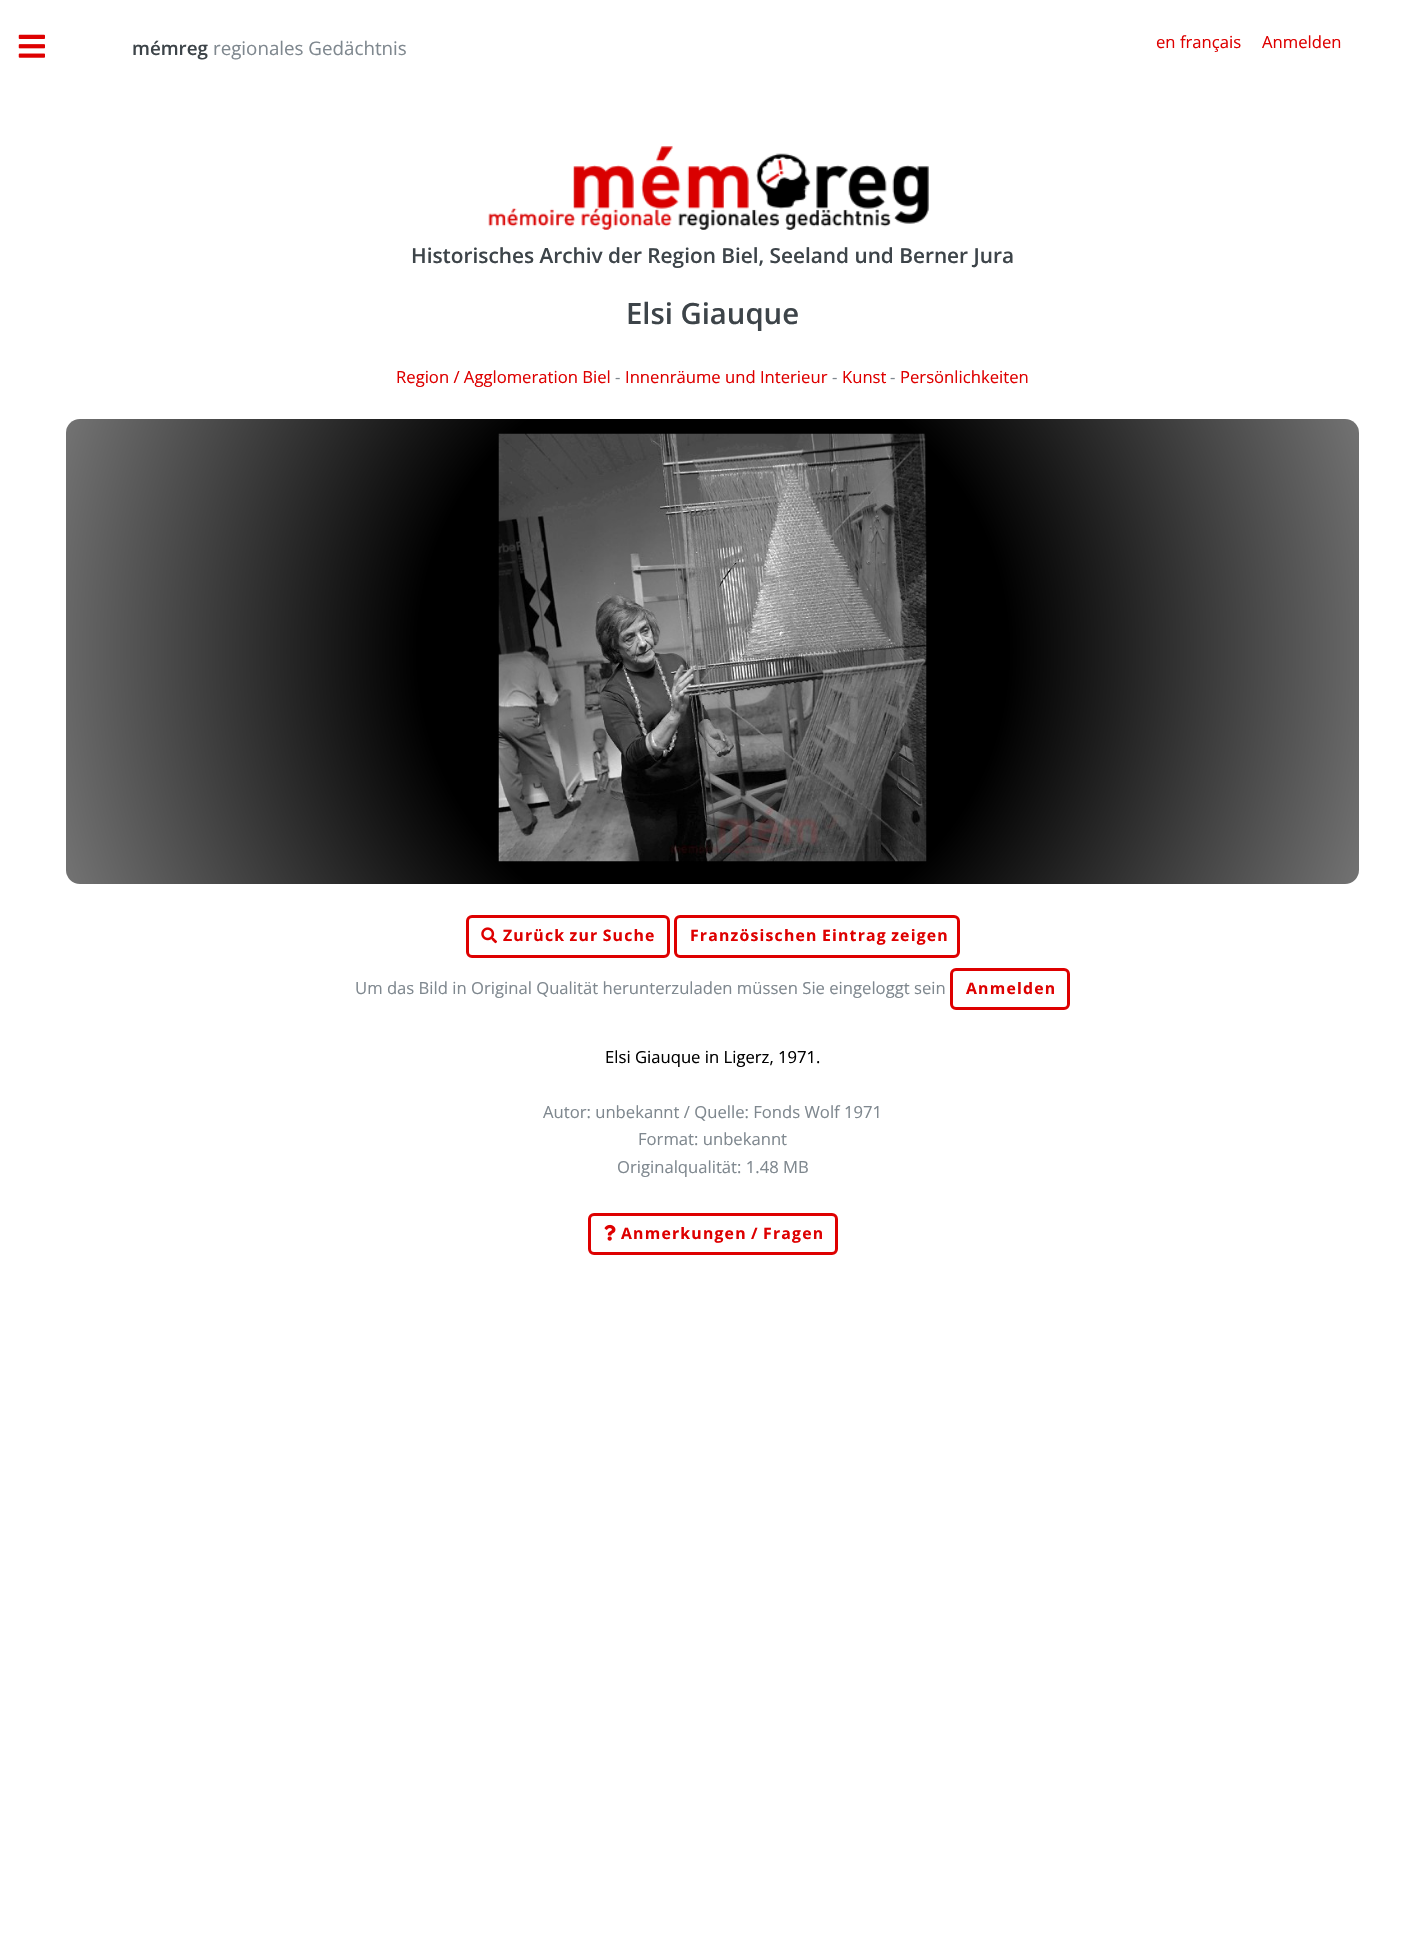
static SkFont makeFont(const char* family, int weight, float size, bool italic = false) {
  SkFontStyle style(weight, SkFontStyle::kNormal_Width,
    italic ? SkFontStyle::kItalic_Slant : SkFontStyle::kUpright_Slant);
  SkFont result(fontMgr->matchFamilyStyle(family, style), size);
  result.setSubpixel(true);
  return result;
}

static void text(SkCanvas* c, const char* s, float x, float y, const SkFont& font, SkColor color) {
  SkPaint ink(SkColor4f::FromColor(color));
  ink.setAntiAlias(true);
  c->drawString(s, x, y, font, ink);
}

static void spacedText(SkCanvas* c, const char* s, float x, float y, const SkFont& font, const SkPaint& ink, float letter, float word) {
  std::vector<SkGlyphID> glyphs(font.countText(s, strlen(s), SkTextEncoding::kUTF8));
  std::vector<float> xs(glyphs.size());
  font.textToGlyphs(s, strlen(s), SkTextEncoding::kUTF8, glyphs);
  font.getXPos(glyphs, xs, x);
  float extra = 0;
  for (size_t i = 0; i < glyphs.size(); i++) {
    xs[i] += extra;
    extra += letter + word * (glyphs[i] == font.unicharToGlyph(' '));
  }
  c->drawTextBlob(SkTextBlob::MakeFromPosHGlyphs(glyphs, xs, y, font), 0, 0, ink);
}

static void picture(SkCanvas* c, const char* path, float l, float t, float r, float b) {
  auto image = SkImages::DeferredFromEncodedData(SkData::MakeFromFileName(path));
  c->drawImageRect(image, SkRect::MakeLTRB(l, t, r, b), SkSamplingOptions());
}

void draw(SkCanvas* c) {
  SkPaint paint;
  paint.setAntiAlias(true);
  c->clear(0xffffffff);
  picture(c, "img_01.png", 18, 34, 45, 58);
  SkFont face1 = makeFont("Open Sans", 600, 18.75f);
  text(c, "mémreg", 132, 55, face1, 0xff3d4449);
  SkFont face2 = makeFont("Open Sans", 400, 18.75f);
  text(c, "regionales Gedächtnis", 213, 55, face2, 0xff7f888f);
  SkFont face3 = makeFont("Open Sans", 400, 16.65f);
  text(c, "en français", 1156, 48, face3, 0xffde0000);
  text(c, "Anmelden", 1262, 48, face3, 0xffde0000);
  picture(c, "img_02.png", 488, 146, 929, 230);
  SkFont face4 = makeFont("Open Sans", 600, 20.8f);
  text(c, "Historisches Archiv der Region Biel, Seeland und Berner Jura", 411, 263, face4, 0xff3d4449);
  SkFont face5 = makeFont("Open Sans", 600, 29.25f);
  text(c, "Elsi Giauque", 626, 324, face5, 0xff3d4449);
  text(c, "Region / Agglomeration Biel", 396, 383, face3, 0xffde0000);
  text(c, "-", 615, 383, face3, 0xff7f888f);
  text(c, "Innenräume und Interieur", 625, 383, face3, 0xffde0000);
  text(c, "-", 832, 383, face3, 0xff7f888f);
  text(c, "Kunst", 842, 383, face3, 0xffde0000);
  text(c, "-", 890, 383, face3, 0xff7f888f);
  text(c, "Persönlichkeiten", 900, 383, face3, 0xffde0000);
  {
    const SkColor colors[] = {0xff000000, 0xff737373};
    const float stops[] = {0.43f, 1};
    paint.setShader(SkGradientShader::MakeRadial({713, 651}, 687, colors, stops, 2, SkTileMode::kClamp));
    paint.setAlpha(255);
  }
  c->drawRoundRect(SkRect::MakeLTRB(66, 419, 1359, 884), 14, 14, paint);
  picture(c, "img_03.png", 498, 433, 927, 862);
  paint.setStyle(SkPaint::kStroke_Style);
  paint.setStrokeWidth(3);
  paint.setShader(nullptr);
  paint.setColor(0xffde0000);
  c->drawRoundRect(SkRect::MakeLTRB(467.5f, 916.5f, 668.5f, 956.5f), 4.5f, 4.5f, paint);
  picture(c, "img_04.png", 481, 927, 497, 944);
  SkFont face6 = makeFont("Open Sans", 700, 15.8f);
  paint.setStyle(SkPaint::kFill_Style);
  spacedText(c, "Zurück zur Suche", 503, 941, face6, paint, 1.2f, -1);
  paint.setStyle(SkPaint::kStroke_Style);
  c->drawRoundRect(SkRect::MakeLTRB(675.5f, 916.5f, 958.5f, 956.5f), 4.5f, 4.5f, paint);
  paint.setStyle(SkPaint::kFill_Style);
  spacedText(c, "Französischen Eintrag zeigen", 690, 941, face6, paint, 1.2f, -1);
  text(c, "Um das Bild in Original Qualität herunterzuladen müssen Sie eingeloggt sein", 355, 994, face3, 0xff7f888f);
  paint.setStyle(SkPaint::kStroke_Style);
  c->drawRoundRect(SkRect::MakeLTRB(951.5f, 969.5f, 1068.5f, 1008.5f), 4.5f, 4.5f, paint);
  paint.setStyle(SkPaint::kFill_Style);
  spacedText(c, "Anmelden", 966, 994, face6, paint, 1.2f, 0);
  text(c, "Elsi Giauque in Ligerz, 1971.", 605, 1063, face3, 0xff000000);
  text(c, "Autor: unbekannt / Quelle: Fonds Wolf 1971", 543, 1118, face3, 0xff7f888f);
  text(c, "Format: unbekannt", 638, 1145, face3, 0xff7f888f);
  text(c, "Originalqualität: 1.48 MB", 617, 1173, face3, 0xff7f888f);
  paint.setStyle(SkPaint::kStroke_Style);
  c->drawRoundRect(SkRect::MakeLTRB(589.5f, 1214.5f, 836.5f, 1253.5f), 4.5f, 4.5f, paint);
  picture(c, "img_05.png", 604, 1224, 616, 1241);
  paint.setStyle(SkPaint::kFill_Style);
  spacedText(c, "Anmerkungen / Fragen", 621, 1239, face6, paint, 1.2f, -1);
}
